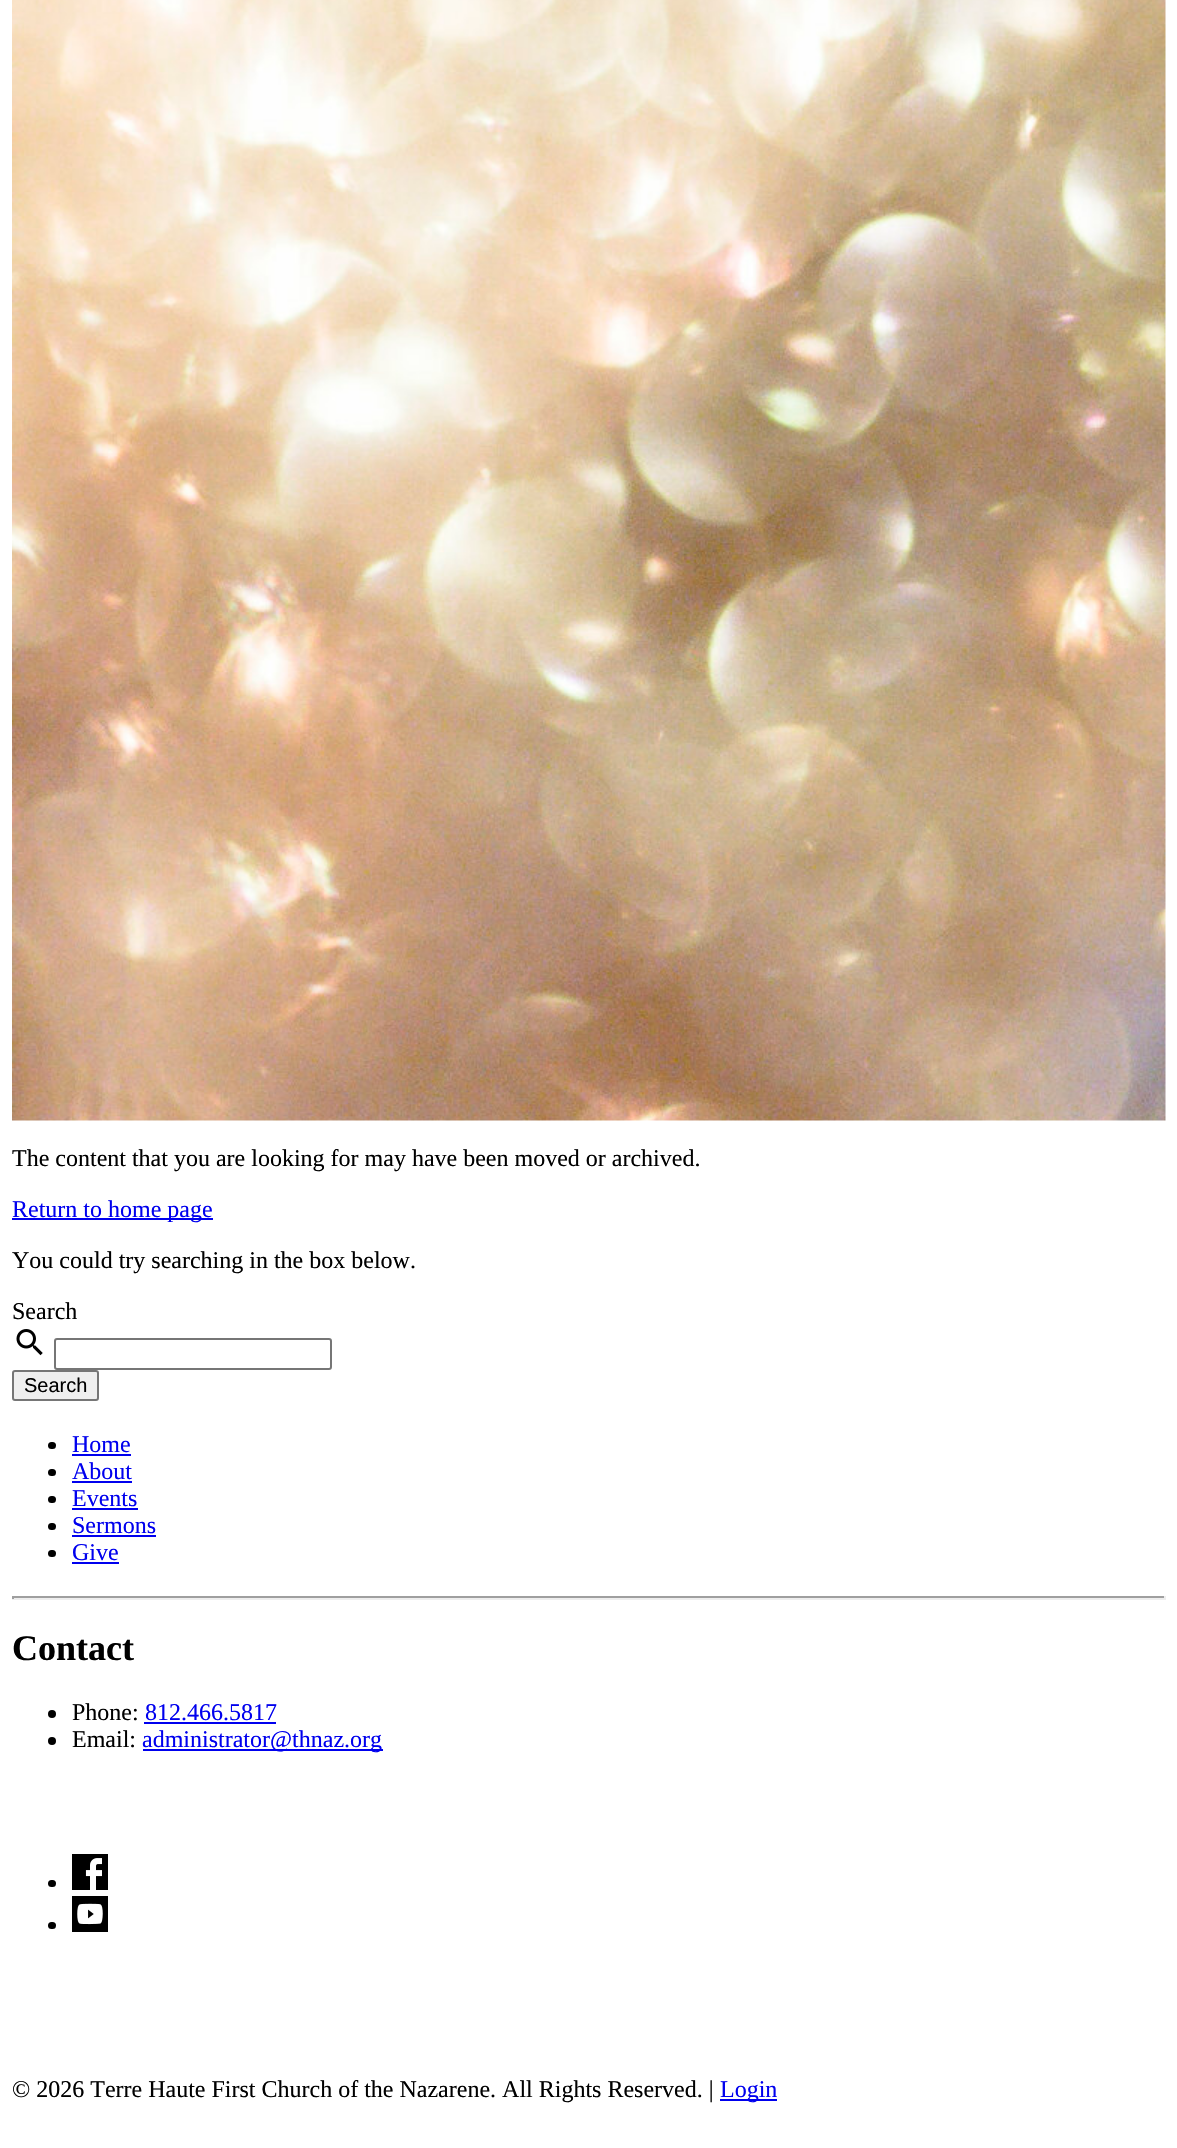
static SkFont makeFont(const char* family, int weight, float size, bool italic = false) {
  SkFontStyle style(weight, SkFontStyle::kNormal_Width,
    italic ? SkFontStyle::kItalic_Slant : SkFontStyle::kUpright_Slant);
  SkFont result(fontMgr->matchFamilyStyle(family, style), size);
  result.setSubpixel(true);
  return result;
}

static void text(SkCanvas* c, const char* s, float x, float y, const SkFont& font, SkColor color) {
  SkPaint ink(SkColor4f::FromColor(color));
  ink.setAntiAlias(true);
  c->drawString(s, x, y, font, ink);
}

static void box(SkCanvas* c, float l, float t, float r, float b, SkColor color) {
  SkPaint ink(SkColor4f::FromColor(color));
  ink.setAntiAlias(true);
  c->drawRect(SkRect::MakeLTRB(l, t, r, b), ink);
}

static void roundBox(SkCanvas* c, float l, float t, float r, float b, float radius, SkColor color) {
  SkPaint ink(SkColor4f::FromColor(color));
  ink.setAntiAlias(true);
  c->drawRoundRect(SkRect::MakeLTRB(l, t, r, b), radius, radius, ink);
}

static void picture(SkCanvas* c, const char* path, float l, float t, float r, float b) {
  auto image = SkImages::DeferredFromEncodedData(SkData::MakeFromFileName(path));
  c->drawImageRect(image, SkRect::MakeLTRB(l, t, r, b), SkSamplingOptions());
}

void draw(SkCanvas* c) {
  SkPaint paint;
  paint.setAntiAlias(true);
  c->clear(0xffffffff);
  picture(c, "img_01.png", 12, 0, 1166, 1121);
  SkFont face1 = makeFont("Liberation Serif", 400, 24);
  text(c, "The content that you are looking for may have been moved or archived.", 12, 1166, face1, 0xff000000);
  box(c, 12, 1218, 213, 1220, 0xff0000ee);
  text(c, "Return to home page", 12, 1217, face1, 0xff0000ee);
  text(c, "You could try searching in the box below.", 12, 1268, face1, 0xff000000);
  text(c, "Search", 12, 1319, face1, 0xff000000);
  picture(c, "img_02.png", 16, 1329, 43, 1356);
  paint.setStyle(SkPaint::kStroke_Style);
  paint.setStrokeWidth(2);
  paint.setColor(0xff767676);
  c->drawRoundRect(SkRect::MakeLTRB(55, 1339, 331, 1369), 2, 2, paint);
  paint.setStyle(SkPaint::kFill_Style);
  paint.setColor(0xffefefef);
  c->drawRoundRect(SkRect::MakeLTRB(13, 1371, 98, 1400), 2, 2, paint);
  paint.setStyle(SkPaint::kStroke_Style);
  paint.setColor(0xff767676);
  c->drawRoundRect(SkRect::MakeLTRB(13, 1371, 98, 1400), 2, 2, paint);
  SkFont face2 = makeFont("Liberation Sans", 400, 20);
  text(c, "Search", 24, 1392, face2, 0xff000000);
  roundBox(c, 48, 1442, 56, 1449, 3.5f, 0xff000000);
  text(c, "Home", 72, 1452, face1, 0xff0000ee);
  box(c, 72, 1454, 131, 1456, 0xff0000ee);
  roundBox(c, 48, 1469, 56, 1476, 3.5f, 0xff000000);
  text(c, "About", 72, 1479, face1, 0xff0000ee);
  box(c, 72, 1481, 132, 1483, 0xff0000ee);
  roundBox(c, 48, 1496, 56, 1503, 3.5f, 0xff000000);
  text(c, "Events", 72, 1506, face1, 0xff0000ee);
  box(c, 72, 1508, 138, 1510, 0xff0000ee);
  roundBox(c, 48, 1523, 56, 1530, 3.5f, 0xff000000);
  text(c, "Sermons", 72, 1533, face1, 0xff0000ee);
  box(c, 72, 1535, 156, 1537, 0xff0000ee);
  roundBox(c, 48, 1550, 56, 1557, 3.5f, 0xff000000);
  text(c, "Give", 72, 1560, face1, 0xff0000ee);
  box(c, 72, 1562, 119, 1564, 0xff0000ee);
  box(c, 12, 1596, 1166, 1598, 0xff9f9f9f);
  box(c, 1164, 1596, 1166, 1599, 0xffeeeeee);
  box(c, 12, 1598, 1166, 1600, 0xffeeeeee);
  box(c, 12, 1596, 14, 1599, 0xff9f9f9f);
  SkFont face3 = makeFont("Liberation Serif", 700, 36);
  text(c, "Contact", 12, 1660, face3, 0xff000000);
  paint.setStyle(SkPaint::kFill_Style);
  paint.setColor(0xff000000);
  c->drawCircle(52, 1714, 4, paint);
  text(c, "Phone:", 72, 1720, face1, 0xff000000);
  text(c, "812.466.5817", 145, 1720, face1, 0xff0000ee);
  box(c, 144, 1722, 276, 1724, 0xff0000ee);
  c->drawCircle(52, 1741, 4, paint);
  text(c, "Email:", 72, 1747, face1, 0xff000000);
  box(c, 143, 1749, 383, 1751, 0xff0000ee);
  text(c, "administrator@thnaz.org", 142, 1747, face1, 0xff0000ee);
  roundBox(c, 48, 1880, 56, 1887, 3.5f, 0xff000000);
  picture(c, "img_03.png", 72, 1854, 108, 1890);
  roundBox(c, 48, 1922, 56, 1929, 3.5f, 0xff000000);
  picture(c, "img_04.png", 72, 1896, 108, 1932);
  text(c, "© 2026 Terre Haute First Church of the Nazarene. All Rights Reserved. |", 12, 2097, face1, 0xff000000);
  box(c, 720, 2099, 777, 2101, 0xff0000ee);
  text(c, "Login", 720, 2097, face1, 0xff0000ee);
}
